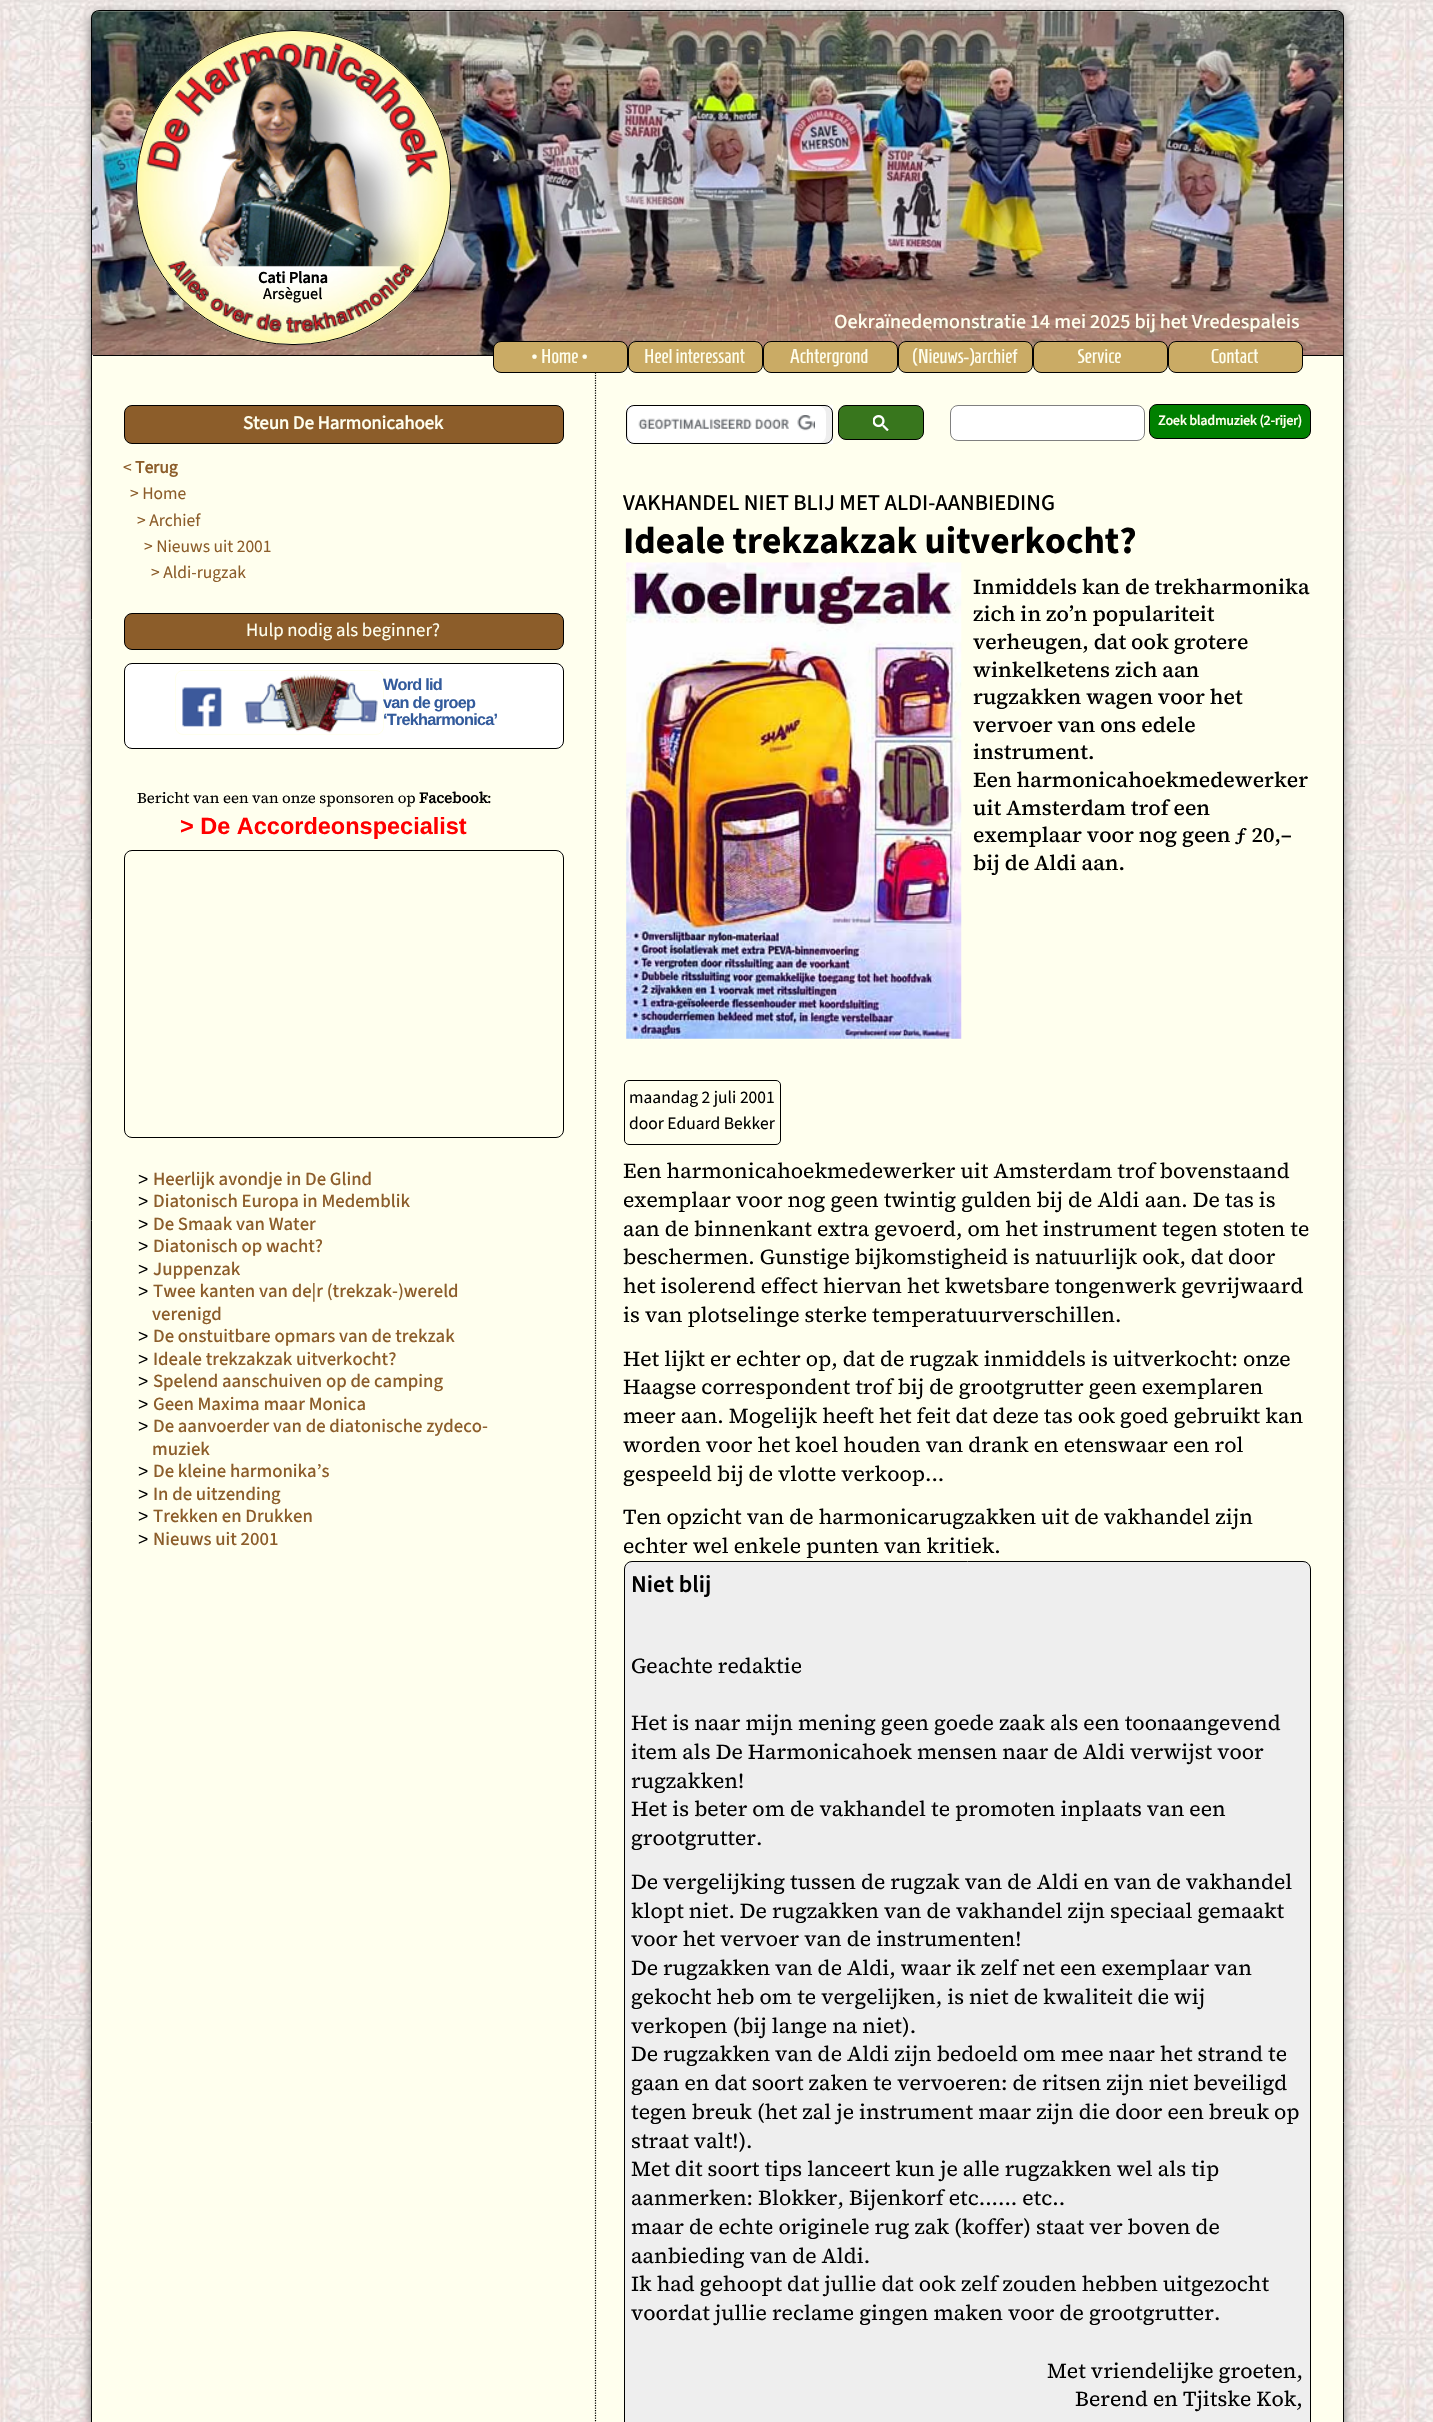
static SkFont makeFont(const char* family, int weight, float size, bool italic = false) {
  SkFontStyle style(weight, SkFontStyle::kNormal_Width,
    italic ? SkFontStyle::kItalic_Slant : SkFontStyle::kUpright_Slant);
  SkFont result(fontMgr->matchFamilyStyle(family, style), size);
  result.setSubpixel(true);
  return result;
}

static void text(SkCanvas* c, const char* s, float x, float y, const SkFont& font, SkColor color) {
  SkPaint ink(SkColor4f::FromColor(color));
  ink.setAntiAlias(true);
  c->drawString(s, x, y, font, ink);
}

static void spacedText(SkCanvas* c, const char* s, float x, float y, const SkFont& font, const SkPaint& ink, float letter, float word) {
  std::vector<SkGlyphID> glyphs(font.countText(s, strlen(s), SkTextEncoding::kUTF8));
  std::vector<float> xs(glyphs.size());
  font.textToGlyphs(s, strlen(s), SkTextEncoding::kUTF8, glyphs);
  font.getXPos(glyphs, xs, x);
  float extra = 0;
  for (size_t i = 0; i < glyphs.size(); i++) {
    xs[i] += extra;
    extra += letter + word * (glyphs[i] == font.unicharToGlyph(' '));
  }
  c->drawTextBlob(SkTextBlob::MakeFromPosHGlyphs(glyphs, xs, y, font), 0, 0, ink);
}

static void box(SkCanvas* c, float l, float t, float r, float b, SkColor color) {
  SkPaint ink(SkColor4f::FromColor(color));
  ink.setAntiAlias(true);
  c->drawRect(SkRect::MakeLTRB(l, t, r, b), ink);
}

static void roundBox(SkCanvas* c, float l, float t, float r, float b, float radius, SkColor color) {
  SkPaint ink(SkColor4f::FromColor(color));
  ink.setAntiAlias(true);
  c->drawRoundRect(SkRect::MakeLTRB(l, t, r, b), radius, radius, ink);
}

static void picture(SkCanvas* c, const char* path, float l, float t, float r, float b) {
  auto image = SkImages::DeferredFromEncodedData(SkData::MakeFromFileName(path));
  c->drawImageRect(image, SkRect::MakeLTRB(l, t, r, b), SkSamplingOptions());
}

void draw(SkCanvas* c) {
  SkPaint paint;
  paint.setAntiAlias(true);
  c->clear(0xffffffff);
  picture(c, "img_01.png", 0, 0, 1433, 2422);
  paint.setColor(0xff7e7e7e);
  paint.setMaskFilter(SkMaskFilter::MakeBlur(kNormal_SkBlurStyle, 6));
  c->drawRoundRect(SkRect::MakeLTRB(91, 14, 1344, 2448), 8, 8, paint);
  paint.setMaskFilter(nullptr);
  roundBox(c, 91, 10, 1344, 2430, 8, 0xffffffee);
  picture(c, "img_02.png", 91, 11, 1344, 355);
  paint.setStyle(SkPaint::kStroke_Style);
  paint.setStrokeWidth(1);
  paint.setColor(0xff000000);
  c->drawRoundRect(SkRect::MakeLTRB(91.5f, 10.5f, 1343.5f, 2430.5f), 7.5f, 7.5f, paint);
  roundBox(c, 136, 30, 451, 345, 156, 0xfffefefe);
  picture(c, "img_03.png", 137, 31, 450, 344);
  c->drawRoundRect(SkRect::MakeLTRB(136.5f, 30.5f, 450.5f, 344.5f), 155.5f, 155.5f, paint);
  SkFont face1 = makeFont("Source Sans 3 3", 700, 16.25f);
  text(c, "Cati Plana", 258, 283, face1, 0xff000000);
  SkFont face2 = makeFont("Source Sans 3", 500, 16.25f);
  text(c, "Arsèguel", 263, 299, face2, 0xff000000);
  paint.setStrokeWidth(1.2f);
  paint.setPathEffect(SkDashPathEffect::Make({{1.25f, 1.25f}}, 0));
  c->drawPath(SkPathBuilder().moveTo(595.5f, 355).lineTo(595.5f, 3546).detach(), paint);
  paint.setPathEffect(nullptr);
  box(c, 93, 355, 1343, 356, 0xff000000);
  paint.setStyle(SkPaint::kFill_Style);
  paint.setColor(0xffcaab65);
  c->drawRoundRect(SkRect::MakeLTRB(493.5f, 341.5f, 627.5f, 372.5f), 7.5f, 7.5f, paint);
  paint.setStyle(SkPaint::kStroke_Style);
  paint.setStrokeWidth(1);
  paint.setColor(0xff000000);
  c->drawRoundRect(SkRect::MakeLTRB(493.5f, 341.5f, 627.5f, 372.5f), 7.5f, 7.5f, paint);
  SkFont face3 = makeFont("Homenaje", 400, 20);
  text(c, "• Home •", 531, 363, face3, 0xffffffee);
  paint.setStyle(SkPaint::kFill_Style);
  paint.setColor(0xffcaab65);
  c->drawRoundRect(SkRect::MakeLTRB(628.5f, 341.5f, 762.5f, 372.5f), 7.5f, 7.5f, paint);
  paint.setStyle(SkPaint::kStroke_Style);
  paint.setColor(0xff000000);
  c->drawRoundRect(SkRect::MakeLTRB(628.5f, 341.5f, 762.5f, 372.5f), 7.5f, 7.5f, paint);
  text(c, "Heel interessant", 644, 363, face3, 0xffffffee);
  paint.setStyle(SkPaint::kFill_Style);
  paint.setColor(0xffcaab65);
  c->drawRoundRect(SkRect::MakeLTRB(763.5f, 341.5f, 897.5f, 372.5f), 7.5f, 7.5f, paint);
  paint.setStyle(SkPaint::kStroke_Style);
  paint.setColor(0xff000000);
  c->drawRoundRect(SkRect::MakeLTRB(763.5f, 341.5f, 897.5f, 372.5f), 7.5f, 7.5f, paint);
  text(c, "Achtergrond", 790, 363, face3, 0xffffffee);
  paint.setStyle(SkPaint::kFill_Style);
  paint.setColor(0xffcaab65);
  c->drawRoundRect(SkRect::MakeLTRB(898.5f, 341.5f, 1032.5f, 372.5f), 7.5f, 7.5f, paint);
  paint.setStyle(SkPaint::kStroke_Style);
  paint.setColor(0xff000000);
  c->drawRoundRect(SkRect::MakeLTRB(898.5f, 341.5f, 1032.5f, 372.5f), 7.5f, 7.5f, paint);
  text(c, "(Nieuws-)archief", 912, 363, face3, 0xffffffee);
  paint.setStyle(SkPaint::kFill_Style);
  paint.setColor(0xffcaab65);
  c->drawRoundRect(SkRect::MakeLTRB(1033.5f, 341.5f, 1167.5f, 372.5f), 7.5f, 7.5f, paint);
  paint.setStyle(SkPaint::kStroke_Style);
  paint.setColor(0xff000000);
  c->drawRoundRect(SkRect::MakeLTRB(1033.5f, 341.5f, 1167.5f, 372.5f), 7.5f, 7.5f, paint);
  text(c, "Service", 1077, 363, face3, 0xffffffee);
  paint.setStyle(SkPaint::kFill_Style);
  paint.setColor(0xffcaab65);
  c->drawRoundRect(SkRect::MakeLTRB(1168.5f, 341.5f, 1302.5f, 372.5f), 7.5f, 7.5f, paint);
  paint.setStyle(SkPaint::kStroke_Style);
  paint.setColor(0xff000000);
  c->drawRoundRect(SkRect::MakeLTRB(1168.5f, 341.5f, 1302.5f, 372.5f), 7.5f, 7.5f, paint);
  text(c, "Contact", 1211, 363, face3, 0xffffffee);
  paint.setStyle(SkPaint::kFill_Style);
  paint.setColor(0xff8c5d2a);
  c->drawRoundRect(SkRect::MakeLTRB(124.5f, 405.5f, 563.5f, 443.5f), 7.5f, 7.5f, paint);
  paint.setStyle(SkPaint::kStroke_Style);
  paint.setColor(0xff000000);
  c->drawRoundRect(SkRect::MakeLTRB(124.5f, 405.5f, 563.5f, 443.5f), 7.5f, 7.5f, paint);
  SkFont face4 = makeFont("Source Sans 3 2", 700, 18.75f);
  text(c, "Steun De Harmonicahoek", 243, 429, face4, 0xffffffee);
  SkFont face5 = makeFont("Source Sans 3", 400, 17.5f);
  text(c, "<", 123, 473, face5, 0xff8c5d2a);
  SkFont face6 = makeFont("Source Sans 3 2", 700, 17.5f);
  text(c, "Terug", 135, 473, face6, 0xff8c5d2a);
  text(c, "> Home", 130, 499, face5, 0xff8c5d2a);
  text(c, "> Archief", 137, 526, face5, 0xff8c5d2a);
  text(c, "> Nieuws uit 2001", 144, 552, face5, 0xff8c5d2a);
  text(c, "> Aldi-rugzak", 151, 578, face5, 0xff8c5d2a);
  paint.setStyle(SkPaint::kFill_Style);
  paint.setColor(0xff8c5d2a);
  c->drawRoundRect(SkRect::MakeLTRB(124.5f, 613.5f, 563.5f, 649.5f), 7.5f, 7.5f, paint);
  paint.setStyle(SkPaint::kStroke_Style);
  paint.setColor(0xff000000);
  c->drawRoundRect(SkRect::MakeLTRB(124.5f, 613.5f, 563.5f, 649.5f), 7.5f, 7.5f, paint);
  SkFont face7 = makeFont("Source Sans 3", 400, 18.75f);
  text(c, "Hulp nodig als beginner?", 246, 636, face7, 0xffffffee);
  paint.setStyle(SkPaint::kFill_Style);
  paint.setColor(0xffffffff);
  c->drawRoundRect(SkRect::MakeLTRB(124.5f, 663.5f, 563.5f, 748.5f), 7.5f, 7.5f, paint);
  paint.setStyle(SkPaint::kStroke_Style);
  paint.setColor(0xff000000);
  c->drawRoundRect(SkRect::MakeLTRB(124.5f, 663.5f, 563.5f, 748.5f), 7.5f, 7.5f, paint);
  paint.setColor(0xffffffee);
  c->drawRoundRect(SkRect::MakeLTRB(175.5f, 670.5f, 383.5f, 734.5f), 7.5f, 7.5f, paint);
  picture(c, "img_04.png", 182, 673, 378, 733);
  SkFont face8 = makeFont("Liberation Sans", 700, 16.25f);
  paint.setStyle(SkPaint::kFill_Style);
  paint.setColor(0xff335b9c);
  spacedText(c, "Word lid", 383, 690, face8, paint, -0.75f, 0);
  spacedText(c, "van de groep", 383, 708, face8, paint, -0.75f, 0);
  spacedText(c, "‘Trekharmonica’", 383, 725, face8, paint, -0.75f, 0);
  SkFont face9 = makeFont("Source Serif 4", 400, 15);
  text(c, "Bericht van een van onze sponsoren op", 137, 803, face9, 0xff000000);
  SkFont face10 = makeFont("Source Serif 4", 700, 15);
  text(c, "Facebook", 419, 803, face10, 0xff000000);
  text(c, ":", 487, 803, face9, 0xff000000);
  SkFont face11 = makeFont("Liberation Sans", 700, 23.5f);
  text(c, "> De Accordeonspecialist", 180, 834, face11, 0xffff0000);
  paint.setStyle(SkPaint::kStroke_Style);
  paint.setColor(0xff000000);
  c->drawRoundRect(SkRect::MakeLTRB(124.5f, 850.5f, 563.5f, 1137.5f), 7.5f, 7.5f, paint);
  SkFont face12 = makeFont("Liberation Sans", 400, 17.5f);
  text(c, ">", 138, 1185, face12, 0xff000000);
  SkFont face13 = makeFont("Source Sans 3", 500, 18.75f);
  text(c, "Heerlijk avondje in De Glind", 153, 1185, face13, 0xff8c5d2a);
  text(c, ">", 138, 1207, face12, 0xff000000);
  text(c, "Diatonisch Europa in Medemblik", 153, 1207, face13, 0xff8c5d2a);
  text(c, ">", 138, 1230, face12, 0xff000000);
  text(c, "De Smaak van Water", 153, 1230, face13, 0xff8c5d2a);
  text(c, ">", 138, 1252, face12, 0xff000000);
  text(c, "Diatonisch op wacht?", 153, 1252, face13, 0xff8c5d2a);
  text(c, ">", 138, 1275, face12, 0xff000000);
  text(c, "Juppenzak", 153, 1275, face13, 0xff8c5d2a);
  text(c, ">", 138, 1297, face12, 0xff000000);
  text(c, "Twee kanten van de|r (trekzak-)wereld", 153, 1297, face13, 0xff8c5d2a);
  text(c, "verenigd", 152, 1320, face13, 0xff8c5d2a);
  text(c, ">", 138, 1342, face12, 0xff000000);
  text(c, "De onstuitbare opmars van de trekzak", 153, 1342, face13, 0xff8c5d2a);
  text(c, ">", 138, 1365, face12, 0xff000000);
  text(c, "Ideale trekzakzak uitverkocht?", 153, 1365, face13, 0xff8c5d2a);
  text(c, ">", 138, 1387, face12, 0xff000000);
  text(c, "Spelend aanschuiven op de camping", 153, 1387, face13, 0xff8c5d2a);
  text(c, ">", 138, 1410, face12, 0xff000000);
  text(c, "Geen Maxima maar Monica", 153, 1410, face13, 0xff8c5d2a);
  text(c, ">", 138, 1432, face12, 0xff000000);
  text(c, "De aanvoerder van de diatonische zydeco-", 153, 1432, face13, 0xff8c5d2a);
  text(c, "muziek", 152, 1455, face13, 0xff8c5d2a);
  text(c, ">", 138, 1477, face12, 0xff000000);
  text(c, "De kleine harmonika’s", 153, 1477, face13, 0xff8c5d2a);
  text(c, ">", 138, 1500, face12, 0xff000000);
  text(c, "In de uitzending", 153, 1500, face13, 0xff8c5d2a);
  text(c, ">", 138, 1522, face12, 0xff000000);
  text(c, "Trekken en Drukken", 153, 1522, face13, 0xff8c5d2a);
  text(c, ">", 138, 1545, face12, 0xff000000);
  text(c, "Nieuws uit 2001", 153, 1545, face13, 0xff8c5d2a);
  box(c, 626, 405, 833, 444, 0xffffffff);
  paint.setStyle(SkPaint::kFill_Style);
  paint.setColor(0xffeeeeee);
  c->drawRoundRect(SkRect::MakeLTRB(626.5f, 405.5f, 832.5f, 443.5f), 7.5f, 7.5f, paint);
  paint.setStyle(SkPaint::kStroke_Style);
  paint.setColor(0xff000000);
  c->drawRoundRect(SkRect::MakeLTRB(626.5f, 405.5f, 832.5f, 443.5f), 7.5f, 7.5f, paint);
  roundBox(c, 628, 406, 826, 443, 8, 0xffffffff);
  picture(c, "img_05.png", 638, 415, 815, 431);
  paint.setStyle(SkPaint::kFill_Style);
  paint.setColor(0xff38761d);
  c->drawRoundRect(SkRect::MakeLTRB(838.5f, 405.5f, 923.5f, 439.5f), 7.5f, 7.5f, paint);
  paint.setStyle(SkPaint::kStroke_Style);
  paint.setColor(0xff000000);
  c->drawRoundRect(SkRect::MakeLTRB(838.5f, 405.5f, 923.5f, 439.5f), 7.5f, 7.5f, paint);
  picture(c, "img_06.png", 873, 415, 889, 431);
  paint.setStyle(SkPaint::kFill_Style);
  paint.setColor(0xffffffff);
  c->drawRoundRect(SkRect::MakeLTRB(950.5f, 405.5f, 1144.5f, 440.5f), 7.5f, 7.5f, paint);
  paint.setStyle(SkPaint::kStroke_Style);
  paint.setColor(0xff808080);
  c->drawRoundRect(SkRect::MakeLTRB(950.5f, 405.5f, 1144.5f, 440.5f), 7.5f, 7.5f, paint);
  paint.setStyle(SkPaint::kFill_Style);
  paint.setColor(0xff008000);
  c->drawRoundRect(SkRect::MakeLTRB(1149.5f, 404.5f, 1310.5f, 438.5f), 7.5f, 7.5f, paint);
  paint.setStyle(SkPaint::kStroke_Style);
  paint.setColor(0xff000000);
  c->drawRoundRect(SkRect::MakeLTRB(1149.5f, 404.5f, 1310.5f, 438.5f), 7.5f, 7.5f, paint);
  SkFont face14 = makeFont("Source Sans 3 2", 700, 13.75f);
  text(c, "Zoek bladmuziek (2-rijer)", 1158, 425, face14, 0xffffffee);
  SkFont face15 = makeFont("Source Sans 3", 500, 22.5f);
  text(c, "VAKHANDEL NIET BLIJ MET ALDI-AANBIEDING", 623, 510, face15, 0xff000000);
  SkFont face16 = makeFont("Source Sans 3", 700, 37.5f);
  text(c, "Ideale trekzakzak uitverkocht?", 623, 553, face16, 0xff000000);
  picture(c, "img_07.png", 626, 562, 962, 1039);
  SkFont face17 = makeFont("Source Serif 4", 500, 21.25f);
  text(c, "Inmiddels kan de trekharmonika", 973, 594, face17, 0xff000000);
  text(c, "zich in zo’n populariteit", 973, 621, face17, 0xff000000);
  text(c, "verheugen, dat ook grotere", 973, 649, face17, 0xff000000);
  text(c, "winkelketens zich aan", 973, 677, face17, 0xff000000);
  text(c, "rugzakken wagen voor het", 973, 704, face17, 0xff000000);
  text(c, "vervoer van ons edele", 973, 732, face17, 0xff000000);
  text(c, "instrument.", 973, 759, face17, 0xff000000);
  text(c, "Een harmonicahoekmedewerker", 973, 787, face17, 0xff000000);
  text(c, "uit Amsterdam trof een", 973, 815, face17, 0xff000000);
  text(c, "exemplaar voor nog geen ƒ 20,–", 973, 842, face17, 0xff000000);
  text(c, "bij de Aldi aan.", 973, 870, face17, 0xff000000);
  c->drawRoundRect(SkRect::MakeLTRB(624.5f, 1080.5f, 780.5f, 1144.5f), 4.5f, 4.5f, paint);
  text(c, "maandag 2 juli 2001", 629, 1103, face5, 0xff000000);
  text(c, "door Eduard Bekker", 629, 1129, face5, 0xff000000);
  SkFont face18 = makeFont("Source Serif 4", 400, 21.25f);
  text(c, "Een harmonicahoekmedewerker uit Amsterdam trof bovenstaand", 623, 1178, face18, 0xff000000);
  text(c, "exemplaar voor nog geen twintig gulden bij de Aldi aan. De tas is", 623, 1207, face18, 0xff000000);
  text(c, "aan de binnenkant extra gevoerd, om het instrument tegen stoten te", 623, 1236, face18, 0xff000000);
  text(c, "beschermen. Gunstige bijkomstigheid is natuurlijk ook, dat door", 623, 1264, face18, 0xff000000);
  text(c, "het isolerend effect hiervan het kwetsbare tongenwerk gevrijwaard", 623, 1293, face18, 0xff000000);
  text(c, "is van plotselinge sterke temperatuurverschillen.", 623, 1322, face18, 0xff000000);
  text(c, "Het lijkt er echter op, dat de rugzak inmiddels is uitverkocht: onze", 623, 1366, face18, 0xff000000);
  text(c, "Haagse correspondent trof bij de grootgrutter geen exemplaren", 623, 1394, face18, 0xff000000);
  text(c, "meer aan. Mogelijk heeft het feit dat deze tas ook goed gebruikt kan", 623, 1423, face18, 0xff000000);
  text(c, "worden voor het koel houden van drank en etenswaar een rol", 623, 1452, face18, 0xff000000);
  text(c, "gespeeld bij de vlotte verkoop...", 623, 1481, face18, 0xff000000);
  text(c, "Ten opzicht van de harmonicarugzakken uit de vakhandel zijn", 623, 1524, face18, 0xff000000);
  text(c, "echter wel enkele punten van kritiek.", 623, 1553, face18, 0xff000000);
  paint.setStyle(SkPaint::kFill_Style);
  paint.setColor(0xffeeeeee);
  c->drawRoundRect(SkRect::MakeLTRB(624.5f, 1561.5f, 1310.5f, 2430.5f), 7.5f, 7.5f, paint);
  paint.setStyle(SkPaint::kStroke_Style);
  paint.setColor(0xff000000);
  c->drawRoundRect(SkRect::MakeLTRB(624.5f, 1561.5f, 1310.5f, 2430.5f), 7.5f, 7.5f, paint);
  SkFont face19 = makeFont("Source Sans 3", 600, 24);
  text(c, "Niet blij", 631, 1592, face19, 0xff000000);
  text(c, "Geachte redaktie", 631, 1673, face18, 0xff000000);
  text(c, "Het is naar mijn mening geen goede zaak als een toonaangevend", 631, 1730, face18, 0xff000000);
  text(c, "item als De Harmonicahoek mensen naar de Aldi verwijst voor", 631, 1759, face18, 0xff000000);
  text(c, "rugzakken!", 631, 1788, face18, 0xff000000);
  text(c, "Het is beter om de vakhandel te promoten inplaats van een", 631, 1816, face18, 0xff000000);
  text(c, "grootgrutter.", 631, 1845, face18, 0xff000000);
  text(c, "De vergelijking tussen de rugzak van de Aldi en van de vakhandel", 631, 1889, face18, 0xff000000);
  text(c, "klopt niet. De rugzakken van de vakhandel zijn speciaal gemaakt", 631, 1918, face18, 0xff000000);
  text(c, "voor het vervoer van de instrumenten!", 631, 1946, face18, 0xff000000);
  text(c, "De rugzakken van de Aldi, waar ik zelf net een exemplaar van", 631, 1975, face18, 0xff000000);
  text(c, "gekocht heb om te vergelijken, is niet de kwaliteit die wij", 631, 2004, face18, 0xff000000);
  text(c, "verkopen (bij lange na niet).", 631, 2033, face18, 0xff000000);
  text(c, "De rugzakken van de Aldi zijn bedoeld om mee naar het strand te", 631, 2061, face18, 0xff000000);
  text(c, "gaan en dat soort zaken te vervoeren: de ritsen zijn niet beveiligd", 631, 2090, face18, 0xff000000);
  text(c, "tegen breuk (het zal je instrument maar zijn die door een breuk op", 631, 2119, face18, 0xff000000);
  text(c, "straat valt!).", 631, 2148, face18, 0xff000000);
  text(c, "Met dit soort tips lanceert kun je alle rugzakken wel als tip", 631, 2176, face18, 0xff000000);
  text(c, "aanmerken: Blokker, Bijenkorf etc...... etc..", 631, 2205, face18, 0xff000000);
  text(c, "maar de echte originele rug zak (koffer) staat ver boven de", 631, 2234, face18, 0xff000000);
  text(c, "aanbieding van de Aldi.", 631, 2263, face18, 0xff000000);
  text(c, "Ik had gehoopt dat jullie dat ook zelf zouden hebben uitgezocht", 631, 2291, face18, 0xff000000);
  text(c, "voordat jullie reclame gingen maken voor de grootgrutter.", 631, 2320, face18, 0xff000000);
  text(c, "Met vriendelijke groeten,", 1047, 2378, face18, 0xff000000);
  text(c, "Berend en Tjitske Kok,", 1075, 2406, face18, 0xff000000);
  SkFont face20 = makeFont("Source Sans 3", 500, 20);
  text(c, "Oekraïnedemonstratie 14 mei 2025 bij het Vredespaleis", 834, 328, face20, 0xffffffee);
}
